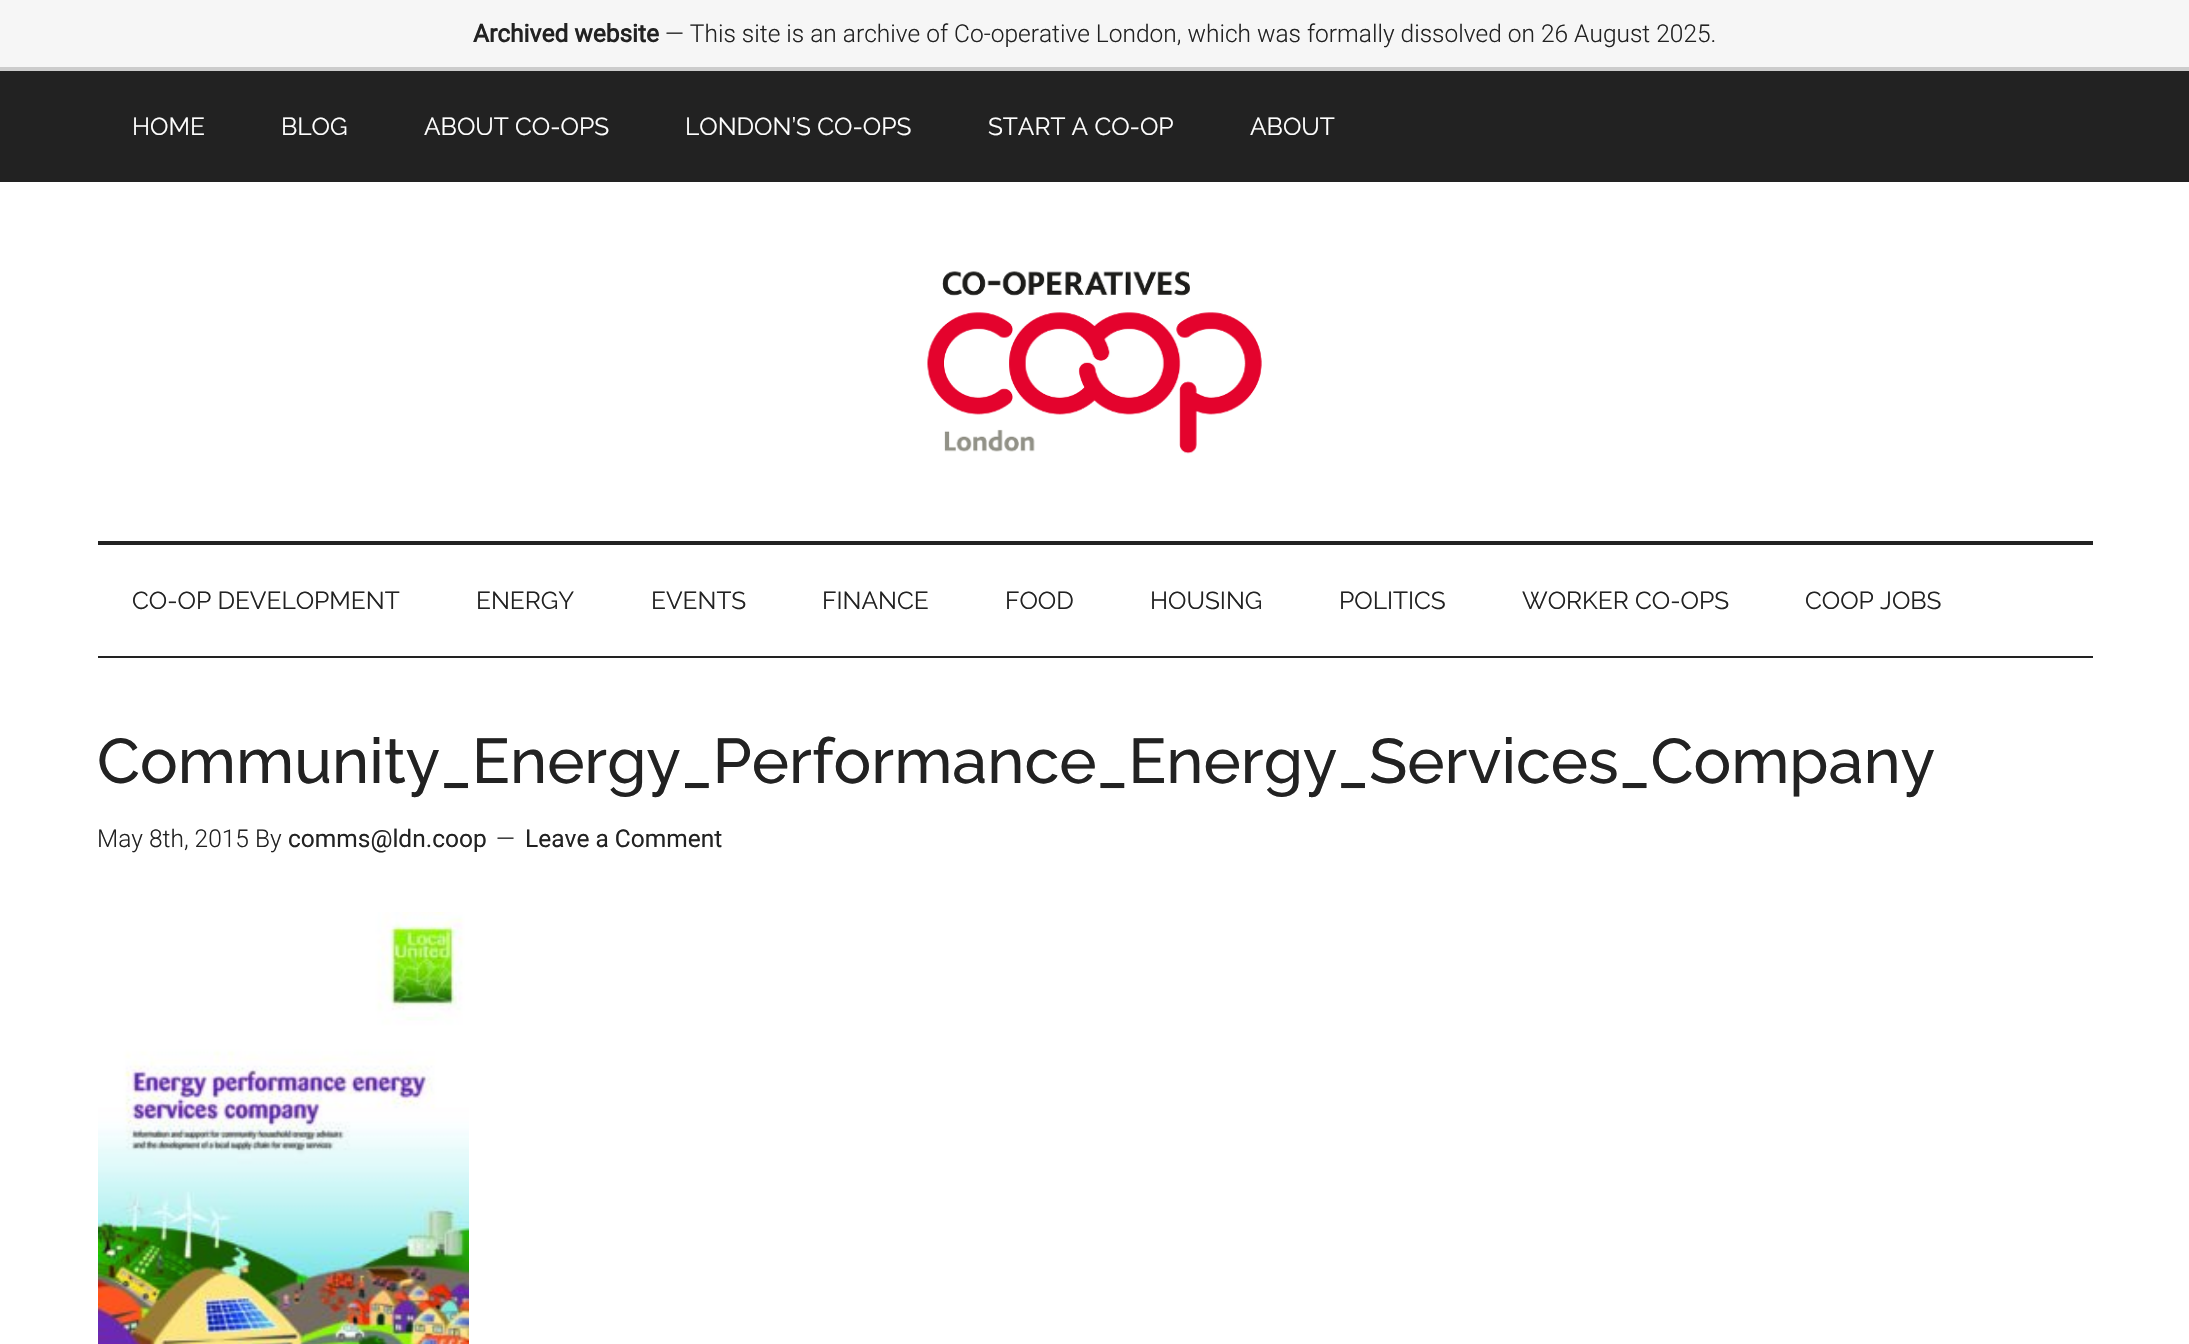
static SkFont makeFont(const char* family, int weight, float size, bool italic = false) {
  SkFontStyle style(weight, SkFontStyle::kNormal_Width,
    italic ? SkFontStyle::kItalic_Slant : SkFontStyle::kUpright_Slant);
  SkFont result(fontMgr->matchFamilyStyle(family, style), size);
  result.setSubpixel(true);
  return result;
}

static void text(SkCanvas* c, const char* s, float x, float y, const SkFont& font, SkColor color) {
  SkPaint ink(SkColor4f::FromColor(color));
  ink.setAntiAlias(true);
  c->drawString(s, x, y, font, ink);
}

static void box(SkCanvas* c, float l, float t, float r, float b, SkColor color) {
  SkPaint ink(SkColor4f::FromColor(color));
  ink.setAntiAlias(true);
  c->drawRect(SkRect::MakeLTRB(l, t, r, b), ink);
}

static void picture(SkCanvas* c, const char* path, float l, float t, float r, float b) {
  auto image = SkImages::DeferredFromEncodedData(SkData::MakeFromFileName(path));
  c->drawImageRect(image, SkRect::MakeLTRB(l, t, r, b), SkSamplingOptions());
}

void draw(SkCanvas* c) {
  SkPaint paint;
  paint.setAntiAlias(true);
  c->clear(0xffffffff);
  box(c, 0, 0, 2189, 67, 0xfff6f6f6);
  box(c, 0, 67, 2189, 71, 0xffcccccc);
  SkFont face1 = makeFont("Roboto", 700, 24.5f);
  text(c, "Archived website", 473, 42, face1, 0xff222222);
  SkFont face2 = makeFont("Roboto", 300, 24.5f);
  text(c, "— This site is an archive of Co-operative London, which was formally dissolved on 26 August 2025.", 665, 42, face2, 0xff222222);
  box(c, 0, 71, 2189, 182, 0xff222222);
  SkFont face3 = makeFont("Raleway", 400, 24.5f);
  text(c, "HOME", 132, 135, face3, 0xffffffff);
  text(c, "BLOG", 281, 135, face3, 0xffffffff);
  text(c, "ABOUT CO-OPS", 424, 135, face3, 0xffffffff);
  text(c, "LONDON’S CO-OPS", 685, 135, face3, 0xffffffff);
  text(c, "START A CO-OP", 988, 135, face3, 0xffffffff);
  text(c, "ABOUT", 1250, 135, face3, 0xffffffff);
  box(c, 98, 541, 2093, 545, 0xff222222);
  picture(c, "img_01.png", 927, 271, 1262, 454);
  box(c, 98, 656, 2093, 658, 0xff222222);
  text(c, "CO-OP DEVELOPMENT", 132, 609, face3, 0xff222222);
  text(c, "ENERGY", 476, 609, face3, 0xff222222);
  text(c, "EVENTS", 651, 609, face3, 0xff222222);
  text(c, "FINANCE", 822, 609, face3, 0xff222222);
  text(c, "FOOD", 1005, 609, face3, 0xff222222);
  text(c, "HOUSING", 1150, 609, face3, 0xff222222);
  text(c, "POLITICS", 1339, 609, face3, 0xff222222);
  text(c, "WORKER CO-OPS", 1522, 609, face3, 0xff222222);
  text(c, "COOP JOBS", 1805, 609, face3, 0xff222222);
  SkFont face4 = makeFont("Raleway", 500, 63);
  text(c, "Community_Energy_Performance_Energy_Services_Company", 97, 783, face4, 0xff222222);
  text(c, "May 8th, 2015 By", 97, 847, face2, 0xff222222);
  SkFont face5 = makeFont("Roboto", 400, 24.5f);
  text(c, "comms@ldn.coop", 288, 847, face5, 0xff222222);
  text(c, "—", 496, 847, face2, 0xff222222);
  text(c, "Leave a Comment", 525, 847, face5, 0xff222222);
  picture(c, "img_02.png", 98, 912, 469, 1344);
}
